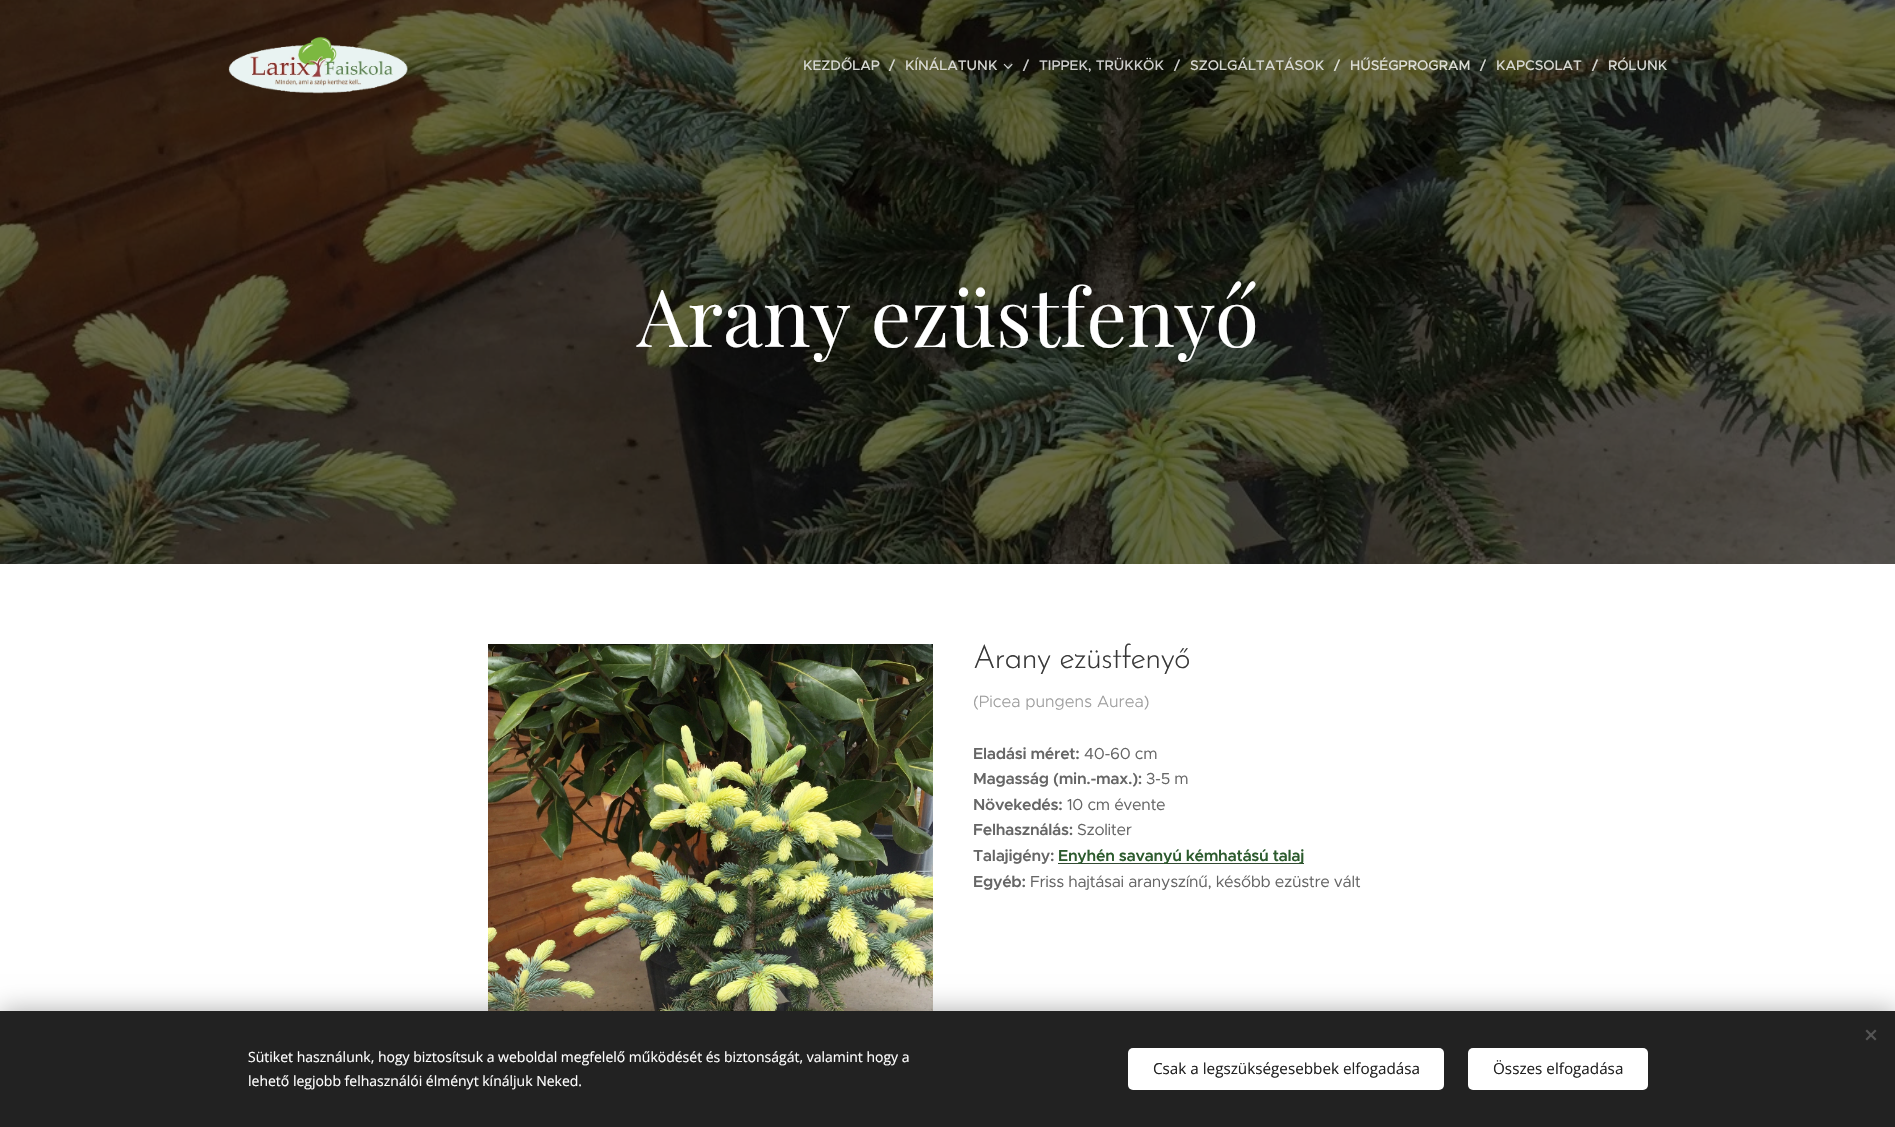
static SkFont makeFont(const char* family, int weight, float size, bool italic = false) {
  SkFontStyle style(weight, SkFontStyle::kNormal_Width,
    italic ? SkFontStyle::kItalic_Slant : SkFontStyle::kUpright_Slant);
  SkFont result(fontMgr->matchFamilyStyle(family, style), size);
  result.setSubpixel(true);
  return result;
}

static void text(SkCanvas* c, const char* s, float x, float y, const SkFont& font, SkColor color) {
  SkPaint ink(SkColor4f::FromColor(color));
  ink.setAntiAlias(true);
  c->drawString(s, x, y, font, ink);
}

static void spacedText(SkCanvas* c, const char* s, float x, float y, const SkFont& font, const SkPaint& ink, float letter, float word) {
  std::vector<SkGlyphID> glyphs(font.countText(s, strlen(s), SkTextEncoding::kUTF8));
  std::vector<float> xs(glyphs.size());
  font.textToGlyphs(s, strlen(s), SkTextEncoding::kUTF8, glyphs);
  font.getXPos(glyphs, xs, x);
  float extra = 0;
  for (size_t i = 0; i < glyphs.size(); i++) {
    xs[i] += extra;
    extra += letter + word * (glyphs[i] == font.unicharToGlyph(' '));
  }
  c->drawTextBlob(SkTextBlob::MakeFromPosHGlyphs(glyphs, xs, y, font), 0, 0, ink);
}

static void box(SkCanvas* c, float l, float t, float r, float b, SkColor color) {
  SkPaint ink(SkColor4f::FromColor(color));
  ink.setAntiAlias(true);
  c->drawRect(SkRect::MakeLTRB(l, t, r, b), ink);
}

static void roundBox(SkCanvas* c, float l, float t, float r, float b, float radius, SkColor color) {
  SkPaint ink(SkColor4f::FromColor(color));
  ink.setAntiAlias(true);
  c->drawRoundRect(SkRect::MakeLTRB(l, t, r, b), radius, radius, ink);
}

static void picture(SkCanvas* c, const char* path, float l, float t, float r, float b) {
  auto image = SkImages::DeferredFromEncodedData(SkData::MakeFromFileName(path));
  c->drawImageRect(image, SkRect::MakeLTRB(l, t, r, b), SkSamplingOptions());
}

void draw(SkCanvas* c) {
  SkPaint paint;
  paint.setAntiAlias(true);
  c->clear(0xffffffff);
  picture(c, "img_03.png", 0, 0, 1895, 564);
  picture(c, "img_01.png", 228, 36, 408, 94);
  SkFont face1 = makeFont("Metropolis", 500, 14);
  text(c, "KEZDŐLAP", 803, 70, face1, 0xffd7d8d3);
  text(c, "/", 889, 70, face1, 0xffd7d8d3);
  text(c, "KÍNÁLATUNK", 905, 70, face1, 0xffd7d8d3);
  text(c, "/", 1023, 70, face1, 0xffcfcfce);
  picture(c, "img_02.png", 1003, 63, 1013, 69);
  text(c, "TIPPEK, TRÜKKÖK", 1039, 70, face1, 0xffcfcfce);
  text(c, "/", 1174, 70, face1, 0xffcfcfce);
  text(c, "SZOLGÁLTATÁSOK", 1190, 70, face1, 0xffd7d8d3);
  text(c, "/", 1334, 70, face1, 0xffdedfd7);
  text(c, "HŰSÉGPROGRAM", 1350, 70, face1, 0xffdedfd7);
  text(c, "/", 1480, 70, face1, 0xffd7d8d3);
  text(c, "KAPCSOLAT", 1496, 70, face1, 0xffd7d8d3);
  text(c, "/", 1592, 70, face1, 0xffd7d8d3);
  text(c, "RÓLUNK", 1608, 70, face1, 0xffd7d8d3);
  SkFont face2 = makeFont("Playfair Display", 400, 80);
  text(c, "Arany ezüstfenyő", 637, 347, face2, 0xffffffff);
  picture(c, "img_04.png", 488, 644, 933, 1011);
  SkFont face3 = makeFont("Josefin Sans", 300, 32);
  paint.setColor(0xff393939);
  spacedText(c, "Arany ezüstfenyő", 973, 668, face3, paint, -1, 0);
  SkFont face4 = makeFont("Metropolis", 300, 16.4f);
  text(c, "(Picea pungens Aurea)", 973, 707, face4, 0xff9d9d9d);
  SkFont face5 = makeFont("Metropolis", 600, 16);
  paint.setColor(0xff666666);
  spacedText(c, "Eladási méret:", 973, 759, face5, paint, -0.3f, 0);
  SkFont face6 = makeFont("Metropolis", 400, 16);
  spacedText(c, "40-60 cm", 1084, 759, face6, paint, -0.3f, 0);
  spacedText(c, "Magasság (min.-max.):", 973, 784, face5, paint, -0.3f, 0);
  spacedText(c, "3-5 m", 1146, 784, face6, paint, -0.3f, 0);
  spacedText(c, "Növekedés:", 973, 810, face5, paint, -0.3f, 0);
  spacedText(c, "10 cm évente", 1067, 810, face6, paint, -0.3f, 0);
  spacedText(c, "Felhasználás:", 973, 835, face5, paint, -0.3f, 0);
  spacedText(c, "Szoliter", 1077, 835, face6, paint, -0.3f, 0);
  spacedText(c, "Talajigény:", 973, 861, face5, paint, -0.3f, 0);
  box(c, 1058, 863, 1304, 864, 0xff334a33);
  paint.setColor(0xff2c5b2d);
  spacedText(c, "Enyhén savanyú kémhatású talaj", 1058, 861, face5, paint, -0.3f, 0);
  paint.setColor(0xff666666);
  spacedText(c, "Egyéb:", 973, 887, face5, paint, -0.3f, 0);
  spacedText(c, "Friss hajtásai aranyszínű, később ezüstre vált", 1030, 887, face6, paint, -0.3f, 0);
  paint.setColor(0x54000000);
  paint.setMaskFilter(SkMaskFilter::MakeBlur(kNormal_SkBlurStyle, 12.5f));
  c->drawRect(SkRect::MakeLTRB(0, 1011, 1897, 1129), paint);
  paint.setMaskFilter(nullptr);
  box(c, 0, 1011, 1895, 1127, 0xff222222);
  paint.setColor(0xff555555);
  c->drawPath(SkPathBuilder().moveTo(1865.5f, 1039).lineTo(1875, 1029.5f).lineTo(1876.5f, 1031).lineTo(1867, 1040.5f).close().detach(), paint);
  c->drawPath(SkPathBuilder().moveTo(1867, 1029.5f).lineTo(1876.5f, 1039).lineTo(1875, 1040.5f).lineTo(1865.5f, 1031).close().detach(), paint);
  SkFont face7 = makeFont("Open Sans", 400, 14);
  text(c, "Sütiket használunk, hogy biztosítsuk a weboldal megfelelő működését és biztonságát, valamint hogy a", 248, 1062, face7, 0xffffffff);
  text(c, "lehető legjobb felhasználói élményt kínáljuk Neked.", 248, 1086, face7, 0xffffffff);
  roundBox(c, 1128, 1048, 1444, 1090, 5, 0xffffffff);
  SkFont face8 = makeFont("Open Sans", 400, 15.25f);
  text(c, "Csak a legszükségesebbek elfogadása", 1153, 1074, face8, 0xff222222);
  roundBox(c, 1468, 1048, 1648, 1090, 5, 0xffffffff);
  text(c, "Összes elfogadása", 1493, 1074, face8, 0xff222222);
}
